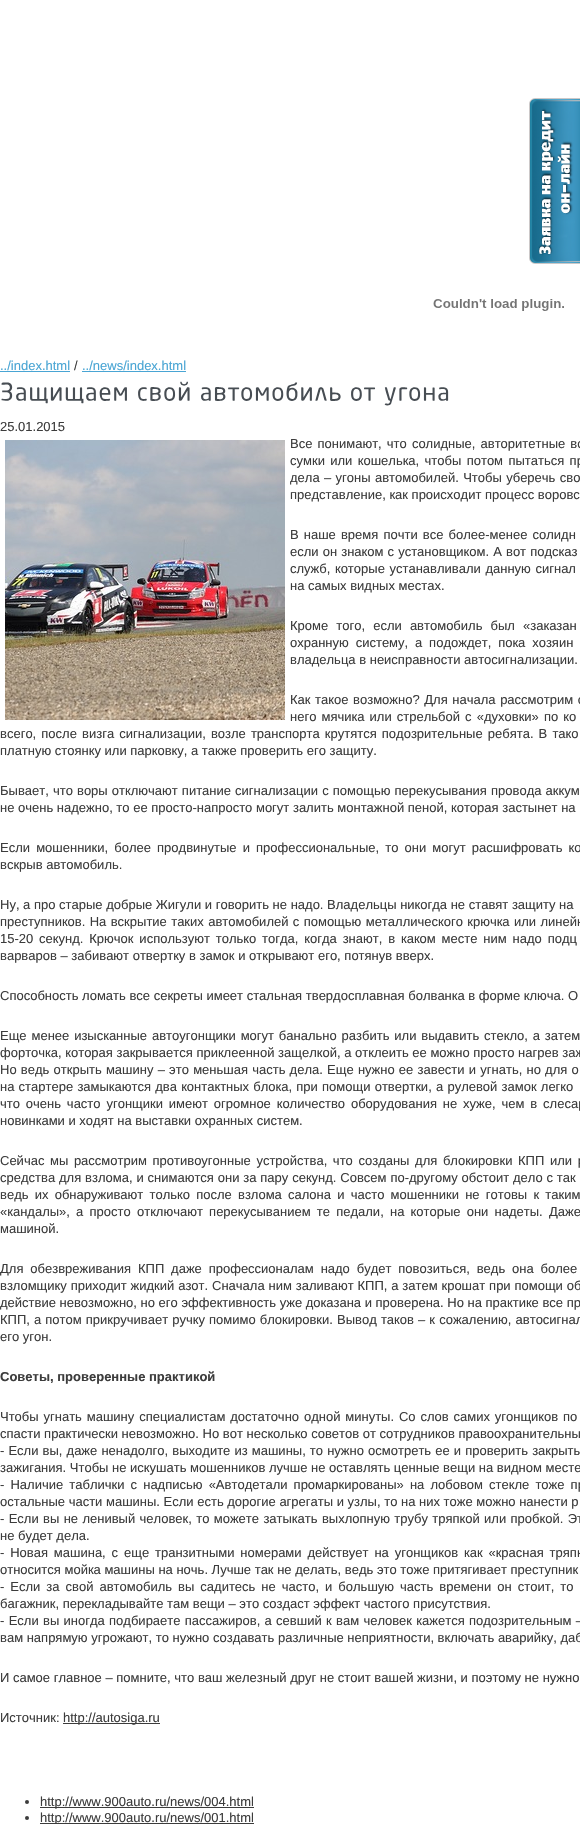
static SkFont makeFont(const char* family, int weight, float size, bool italic = false) {
  SkFontStyle style(weight, SkFontStyle::kNormal_Width,
    italic ? SkFontStyle::kItalic_Slant : SkFontStyle::kUpright_Slant);
  SkFont result(fontMgr->matchFamilyStyle(family, style), size);
  result.setSubpixel(true);
  return result;
}

static void text(SkCanvas* c, const char* s, float x, float y, const SkFont& font, SkColor color) {
  SkPaint ink(SkColor4f::FromColor(color));
  ink.setAntiAlias(true);
  c->drawString(s, x, y, font, ink);
}

static void spacedText(SkCanvas* c, const char* s, float x, float y, const SkFont& font, const SkPaint& ink, float letter, float word) {
  std::vector<SkGlyphID> glyphs(font.countText(s, strlen(s), SkTextEncoding::kUTF8));
  std::vector<float> xs(glyphs.size());
  font.textToGlyphs(s, strlen(s), SkTextEncoding::kUTF8, glyphs);
  font.getXPos(glyphs, xs, x);
  float extra = 0;
  for (size_t i = 0; i < glyphs.size(); i++) {
    xs[i] += extra;
    extra += letter + word * (glyphs[i] == font.unicharToGlyph(' '));
  }
  c->drawTextBlob(SkTextBlob::MakeFromPosHGlyphs(glyphs, xs, y, font), 0, 0, ink);
}

static void box(SkCanvas* c, float l, float t, float r, float b, SkColor color) {
  SkPaint ink(SkColor4f::FromColor(color));
  ink.setAntiAlias(true);
  c->drawRect(SkRect::MakeLTRB(l, t, r, b), ink);
}

static void picture(SkCanvas* c, const char* path, float l, float t, float r, float b) {
  auto image = SkImages::DeferredFromEncodedData(SkData::MakeFromFileName(path));
  c->drawImageRect(image, SkRect::MakeLTRB(l, t, r, b), SkSamplingOptions());
}

void draw(SkCanvas* c) {
  SkPaint paint;
  paint.setAntiAlias(true);
  c->clear(0xffffffff);
  picture(c, "img_01.png", 529, 98, 580, 264);
  picture(c, "img_02.png", 433, 299, 564, 311);
  SkFont face1 = makeFont("Liberation Sans", 400, 13);
  text(c, "../index.html", 0, 370, face1, 0xff49a5d4);
  box(c, 0, 371, 70, 372, 0xff49a5d4);
  text(c, "/", 74, 370, face1, 0xff3c3c3c);
  text(c, "../news/index.html", 82, 370, face1, 0xff49a5d4);
  box(c, 82, 371, 186, 372, 0xff49a5d4);
  picture(c, "img_03.png", 1, 382, 127, 404);
  picture(c, "img_04.png", 138, 381, 190, 401);
  picture(c, "img_05.png", 201, 382, 341, 401);
  picture(c, "img_06.png", 351, 387, 376, 401);
  picture(c, "img_07.png", 384, 387, 449, 406);
  text(c, "25.01.2015", 0, 431, face1, 0xff3c3c3c);
  picture(c, "img_08.png", 5, 440, 285, 720);
  paint.setColor(0xff3c3c3c);
  spacedText(c, "Все понимают, что солидные, авторитетные во", 290, 448, face1, paint, 0, 1.5f);
  spacedText(c, "сумки или кошелька, чтобы потом пытаться пр", 290, 465, face1, paint, 0, 1.75f);
  spacedText(c, "дела – угоны автомобилей. Чтобы уберечь сво", 290, 482, face1, paint, 0, 0.75f);
  text(c, "представление, как происходит процесс воровс", 290, 499, face1, 0xff3c3c3c);
  spacedText(c, "В наше время почти все более-менее солидн", 290, 539, face1, paint, 0, 1.5f);
  spacedText(c, "если он знаком с установщиком. А вот подсказ", 290, 556, face1, paint, 0, 0.5f);
  spacedText(c, "служб, которые устанавливали данную сигнал", 290, 573, face1, paint, 0, 1);
  text(c, "на самых видных местах.", 290, 590, face1, 0xff3c3c3c);
  spacedText(c, "Кроме того, если автомобиль был «заказан", 290, 630, face1, paint, 0, 4.5f);
  spacedText(c, "охранную систему, а подождет, пока хозяин", 290, 647, face1, paint, 0, 3.25f);
  text(c, "владельца в неисправности автосигнализации.", 290, 664, face1, 0xff3c3c3c);
  spacedText(c, "Как такое возможно? Для начала рассмотрим с", 290, 704, face1, paint, 0, 1);
  spacedText(c, "него мячика или стрельбой с «духовки» по ко", 290, 721, face1, paint, 0, 1.5f);
  spacedText(c, "всего, после визга сигнализации, возле транспорта крутятся подозрительные ребята. В тако", 0, 738, face1, paint, 0, 1.5f);
  text(c, "платную стоянку или парковку, а также проверить его защиту.", 0, 755, face1, 0xff3c3c3c);
  spacedText(c, "Бывает, что воры отключают питание сигнализации с помощью перекусывания провода аккум", 0, 795, face1, paint, 0, 0.5f);
  text(c, "не очень надежно, то ее просто-напросто могут залить монтажной пеной, которая застынет на", 0, 812, face1, 0xff3c3c3c);
  spacedText(c, "Если мошенники, более продвинутые и профессиональные, то они могут расшифровать ко", 0, 852, face1, paint, 0, 2.5f);
  text(c, "вскрыв автомобиль.", 0, 869, face1, 0xff3c3c3c);
  text(c, "Ну, а про старые добрые Жигули и говорить не надо. Владельцы никогда не ставят защиту на", 0, 909, face1, 0xff3c3c3c);
  spacedText(c, "преступников. На вскрытие таких автомобилей с помощью металлического крючка или линейк", 0, 926, face1, paint, 0, 0.75f);
  spacedText(c, "15-20 секунд. Крючок используют только тогда, когда знают, в каком месте ним надо подц", 0, 943, face1, paint, 0, 2.25f);
  text(c, "варваров – забивают отвертку в замок и открывают его, потянув вверх.", 0, 960, face1, 0xff3c3c3c);
  text(c, "Способность ломать все секреты имеет стальная твердосплавная болванка в форме ключа. О", 0, 1000, face1, 0xff3c3c3c);
  spacedText(c, "Еще менее изысканные автоугонщики могут банально разбить или выдавить стекло, а затем", 0, 1040, face1, paint, 0, 1.25f);
  text(c, "форточка, которая закрывается приклеенной защелкой, а отклеить ее можно просто нагрев заж", 0, 1057, face1, 0xff3c3c3c);
  spacedText(c, "Но ведь открыть машину – это меньшая часть дела. Еще нужно ее завести и угнать, но для о", 0, 1074, face1, paint, 0, 0.6f);
  spacedText(c, "на стартере замыкаются два контактных блока, при помощи отвертки, а рулевой замок легко", 0, 1091, face1, paint, 0, 0.6f);
  spacedText(c, "что очень часто угонщики имеют огромное количество оборудования не хуже, чем в слесар", 0, 1108, face1, paint, 0, 2.25f);
  text(c, "новинками и ходят на выставки охранных систем.", 0, 1125, face1, 0xff3c3c3c);
  spacedText(c, "Сейчас мы рассмотрим противоугонные устройства, что созданы для блокировки КПП или р", 0, 1165, face1, paint, 0, 2);
  spacedText(c, "средства для взлома, и снимаются они за пару секунд. Совсем по-другому обстоит дело с так", 0, 1182, face1, paint, 0, 0.25f);
  spacedText(c, "ведь их обнаруживают только после взлома салона и часто мошенники не готовы к таким", 0, 1199, face1, paint, 0, 2.6f);
  spacedText(c, "«кандалы», а просто отключают перекусыванием те педали, на которые они надеты. Даже", 0, 1216, face1, paint, 0, 2.6f);
  text(c, "машиной.", 0, 1233, face1, 0xff3c3c3c);
  spacedText(c, "Для обезвреживания КПП даже профессионалам надо будет повозиться, ведь она более", 0, 1273, face1, paint, 0, 3.25f);
  spacedText(c, "взломщику приходит жидкий азот. Сначала ним заливают КПП, а затем крошат при помощи об", 0, 1290, face1, paint, 0, 0.25f);
  text(c, "действие невозможно, но его эффективность уже доказана и проверена. Но на практике все пр", 0, 1307, face1, 0xff3c3c3c);
  spacedText(c, "КПП, а потом прикручивает ручку помимо блокировки. Вывод таков – к сожалению, автосигнал", 0, 1324, face1, paint, 0, 0.5f);
  text(c, "его угон.", 0, 1341, face1, 0xff3c3c3c);
  SkFont face2 = makeFont("Liberation Sans", 700, 13);
  text(c, "Советы, проверенные практикой", 0, 1381, face2, 0xff3c3c3c);
  spacedText(c, "Чтобы угнать машину специалистам достаточно одной минуты. Со слов самих угонщиков по", 0, 1421, face1, paint, 0, 1.25f);
  text(c, "спасти практически невозможно. Но вот несколько советов от сотрудников правоохранительны", 0, 1438, face1, 0xff3c3c3c);
  spacedText(c, "- Если вы, даже ненадолго, выходите из машины, то нужно осмотреть ее и проверить закрыты", 0, 1455, face1, paint, 0, 0.5f);
  text(c, "зажигания. Чтобы не искушать мошенников лучше не оставлять ценные вещи на видном месте", 0, 1472, face1, 0xff3c3c3c);
  spacedText(c, "- Наличие таблички с надписью «Автодетали промаркированы» на лобовом стекле тоже пр", 0, 1489, face1, paint, 0, 2.5f);
  text(c, "остальные части машины. Если есть дорогие агрегаты и узлы, то на них тоже можно нанести р", 0, 1506, face1, 0xff3c3c3c);
  spacedText(c, "- Если вы не ленивый человек, то можете затыкать выхлопную трубу тряпкой или пробкой. Эт", 0, 1523, face1, paint, 0, 0.75f);
  text(c, "не будет дела.", 0, 1540, face1, 0xff3c3c3c);
  spacedText(c, "- Новая машина, с еще транзитными номерами действует на угонщиков как «красная тряпк", 0, 1557, face1, paint, 0, 2.25f);
  text(c, "относится мойка машины на ночь. Лучше так не делать, ведь это тоже притягивает преступник", 0, 1574, face1, 0xff3c3c3c);
  spacedText(c, "- Если за свой автомобиль вы садитесь не часто, и большую часть времени он стоит, то", 0, 1591, face1, paint, 0, 2.4f);
  text(c, "багажник, перекладывайте там вещи – это создаст эффект частого присутствия.", 0, 1608, face1, 0xff3c3c3c);
  spacedText(c, "- Если вы иногда подбираете пассажиров, а севший к вам человек кажется подозрительным –", 0, 1625, face1, paint, 0, 0.7f);
  text(c, "вам напрямую угрожают, то нужно создавать различные неприятности, включать аварийку, даб", 0, 1642, face1, 0xff3c3c3c);
  text(c, "И самое главное – помните, что ваш железный друг не стоит вашей жизни, и поэтому не нужно", 0, 1682, face1, 0xff3c3c3c);
  text(c, "Источник:", 0, 1722, face1, 0xff3c3c3c);
  box(c, 63, 1723, 160, 1724, 0xff3c3c3c);
  text(c, "http://autosiga.ru", 63, 1722, face1, 0xff3c3c3c);
  c->drawCircle(27, 1802, 2, paint);
  box(c, 40, 1807, 254, 1808, 0xff3c3c3c);
  text(c, "http://www.900auto.ru/news/004.html", 40, 1806, face1, 0xff3c3c3c);
  c->drawCircle(27, 1818, 2, paint);
  box(c, 40, 1823, 254, 1824, 0xff3c3c3c);
  text(c, "http://www.900auto.ru/news/001.html", 40, 1822, face1, 0xff3c3c3c);
}
